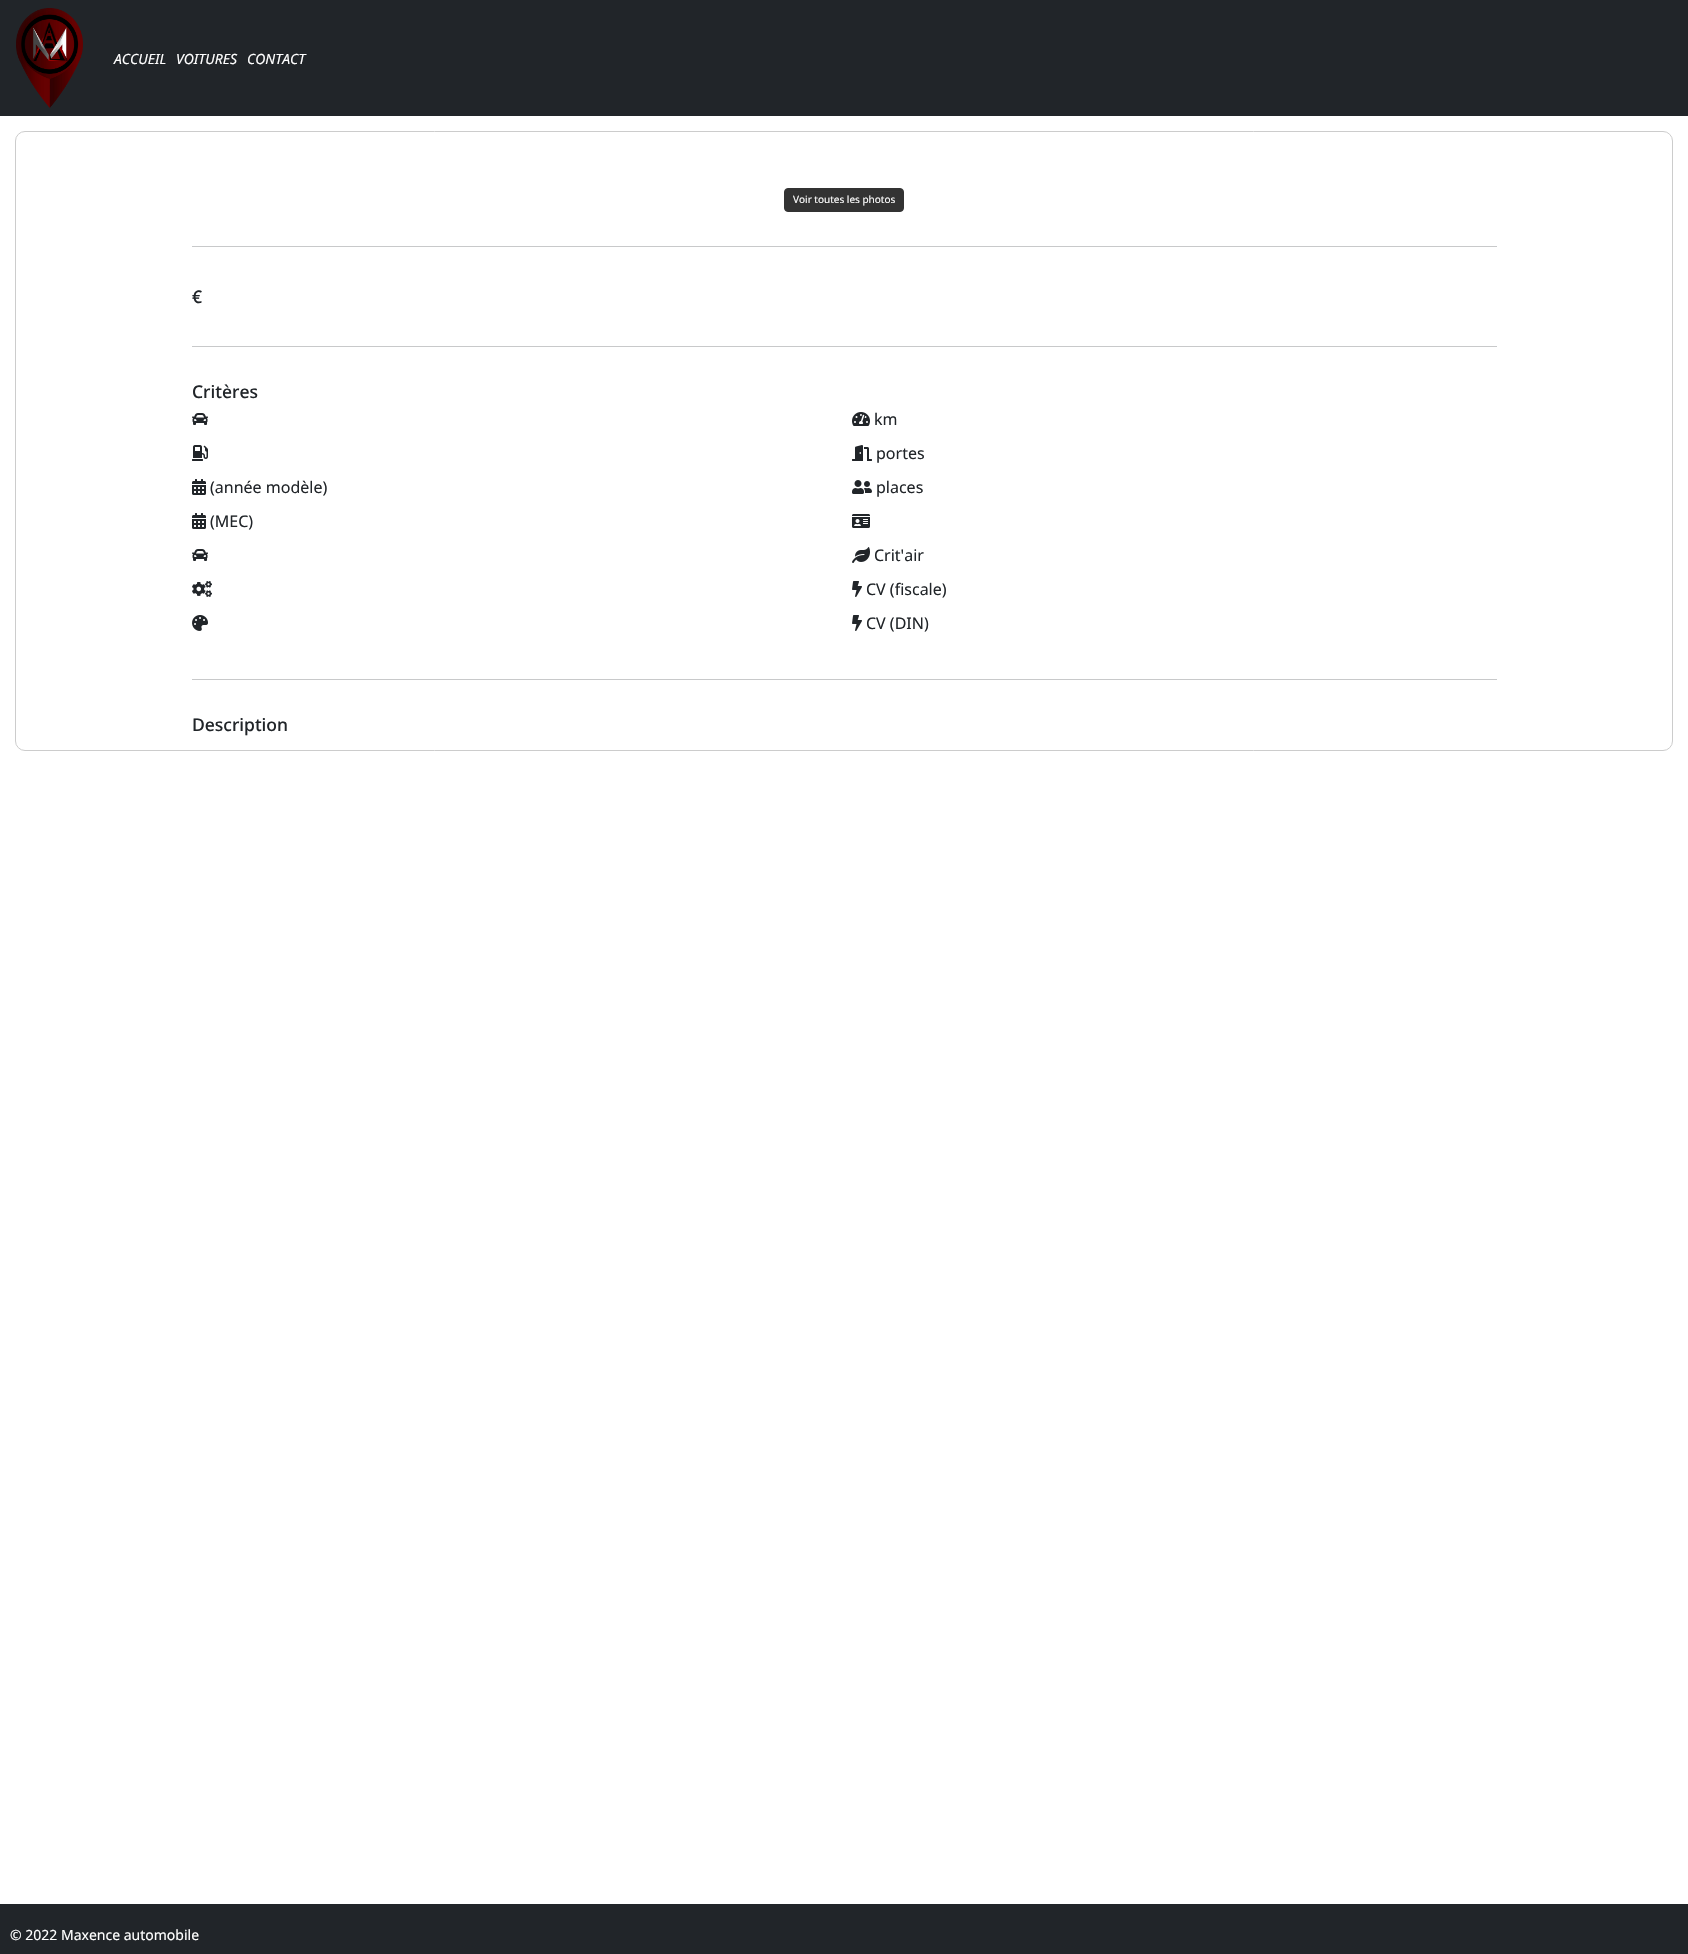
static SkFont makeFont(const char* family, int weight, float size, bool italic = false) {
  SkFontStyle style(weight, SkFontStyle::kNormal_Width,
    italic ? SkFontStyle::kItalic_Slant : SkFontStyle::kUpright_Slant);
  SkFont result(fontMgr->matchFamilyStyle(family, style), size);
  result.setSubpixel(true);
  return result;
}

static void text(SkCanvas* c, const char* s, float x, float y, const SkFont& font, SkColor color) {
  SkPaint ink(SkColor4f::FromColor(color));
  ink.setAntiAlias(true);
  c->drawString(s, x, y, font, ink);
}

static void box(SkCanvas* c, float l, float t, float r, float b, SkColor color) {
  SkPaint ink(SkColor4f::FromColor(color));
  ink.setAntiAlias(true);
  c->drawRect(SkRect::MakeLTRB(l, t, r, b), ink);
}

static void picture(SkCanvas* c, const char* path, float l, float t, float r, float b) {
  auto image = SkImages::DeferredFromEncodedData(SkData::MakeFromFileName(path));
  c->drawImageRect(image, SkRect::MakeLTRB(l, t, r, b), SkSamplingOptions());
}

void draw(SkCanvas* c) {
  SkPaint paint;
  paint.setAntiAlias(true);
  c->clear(0xffffffff);
  box(c, 0, 0, 1688, 116, 0xff212529);
  picture(c, "img_01.png", 16, 8, 83, 108);
  SkFont face1 = makeFont("Noto Sans", 400, 14, true);
  text(c, "ACCUEIL", 114, 64, face1, 0xffffffff);
  text(c, "VOITURES", 176, 64, face1, 0xffffffff);
  text(c, "CONTACT", 247, 64, face1, 0xffffffff);
  paint.setStyle(SkPaint::kStroke_Style);
  paint.setStrokeWidth(1);
  paint.setColor(0xffcccccc);
  c->drawRoundRect(SkRect::MakeLTRB(15.5f, 131.5f, 1672.5f, 750.5f), 9.5f, 9.5f, paint);
  paint.setStyle(SkPaint::kFill_Style);
  paint.setColor(0xff333333);
  c->drawRoundRect(SkRect::MakeLTRB(784.5f, 188.5f, 903.5f, 211.5f), 3.5f, 3.5f, paint);
  paint.setStyle(SkPaint::kStroke_Style);
  c->drawRoundRect(SkRect::MakeLTRB(784.5f, 188.5f, 903.5f, 211.5f), 3.5f, 3.5f, paint);
  SkFont face2 = makeFont("Noto Sans", 400, 10);
  text(c, "Voir toutes les photos", 793, 203, face2, 0xffffffff);
  box(c, 192, 246, 1497, 247, 0xffc8c9ca);
  SkFont face3 = makeFont("Noto Sans", 500, 17.5f);
  text(c, "€", 192, 303, face3, 0xff212529);
  box(c, 192, 346, 1497, 347, 0xffc8c9ca);
  text(c, "Critères", 192, 398, face3, 0xff212529);
  picture(c, "img_02.png", 192, 413, 208, 425);
  picture(c, "img_03.png", 192, 445, 208, 461);
  picture(c, "img_04.png", 192, 479, 206, 495);
  SkFont face4 = makeFont("Noto Sans", 400, 16);
  text(c, "(année modèle)", 210, 493, face4, 0xff212529);
  picture(c, "img_04.png", 192, 513, 206, 529);
  text(c, "(MEC)", 210, 527, face4, 0xff212529);
  picture(c, "img_02.png", 192, 549, 208, 561);
  picture(c, "img_05.png", 192, 581, 212, 597);
  picture(c, "img_06.png", 192, 615, 208, 631);
  picture(c, "img_07.png", 852, 412, 870, 426);
  text(c, "km", 874, 425, face4, 0xff212529);
  picture(c, "img_08.png", 852, 445, 872, 461);
  text(c, "portes", 876, 459, face4, 0xff212529);
  picture(c, "img_09.png", 852, 480, 872, 494);
  text(c, "places", 876, 493, face4, 0xff212529);
  picture(c, "img_10.png", 852, 514, 870, 528);
  picture(c, "img_11.png", 852, 547, 870, 563);
  text(c, "Crit'air", 874, 561, face4, 0xff212529);
  picture(c, "img_12.png", 852, 581, 862, 597);
  text(c, "CV (fiscale)", 866, 595, face4, 0xff212529);
  picture(c, "img_12.png", 852, 615, 862, 631);
  text(c, "CV (DIN)", 866, 629, face4, 0xff212529);
  box(c, 192, 679, 1497, 680, 0xffc8c9ca);
  text(c, "Description", 192, 731, face3, 0xff212529);
  box(c, 0, 1904, 1688, 1954, 0xff212529);
  SkFont face5 = makeFont("Noto Sans", 400, 14);
  text(c, "© 2022 Maxence automobile", 10, 1940, face5, 0xffffffff);
}
